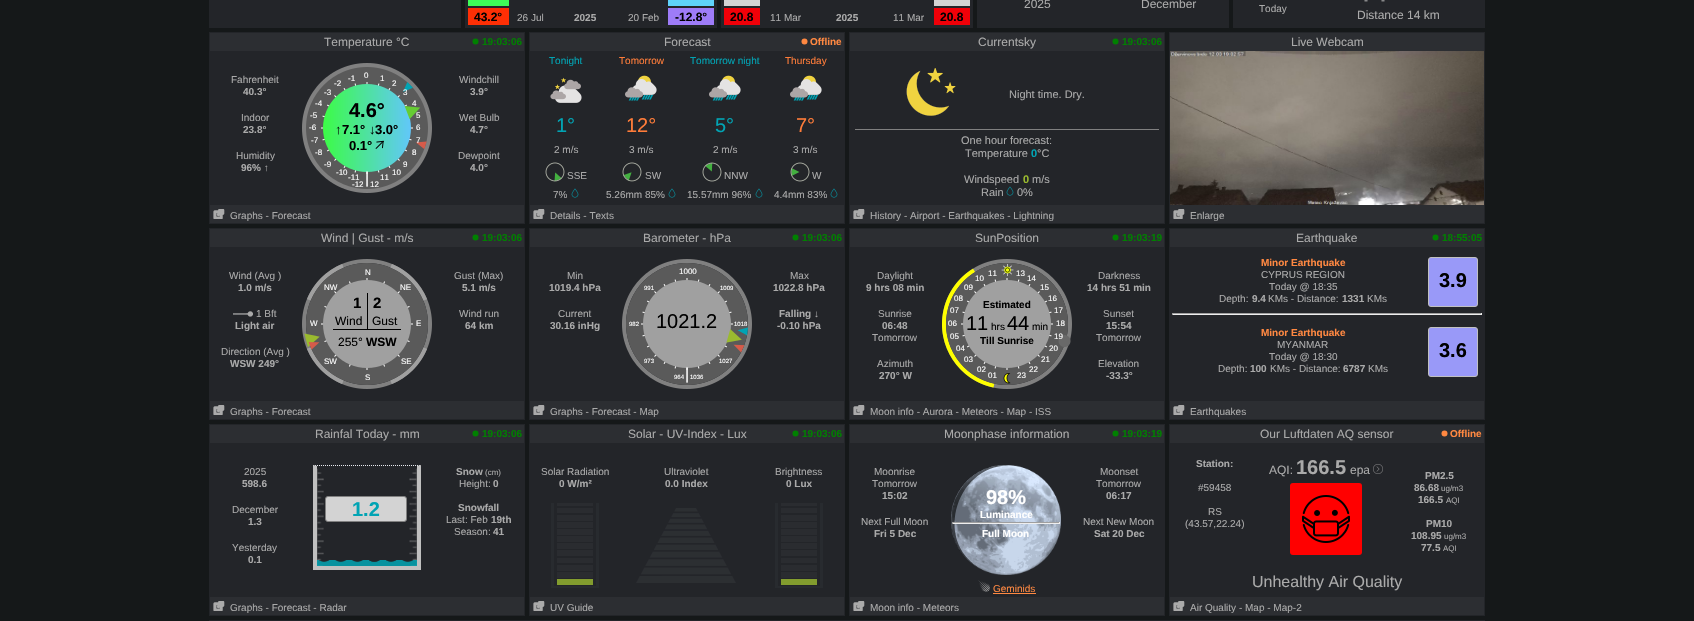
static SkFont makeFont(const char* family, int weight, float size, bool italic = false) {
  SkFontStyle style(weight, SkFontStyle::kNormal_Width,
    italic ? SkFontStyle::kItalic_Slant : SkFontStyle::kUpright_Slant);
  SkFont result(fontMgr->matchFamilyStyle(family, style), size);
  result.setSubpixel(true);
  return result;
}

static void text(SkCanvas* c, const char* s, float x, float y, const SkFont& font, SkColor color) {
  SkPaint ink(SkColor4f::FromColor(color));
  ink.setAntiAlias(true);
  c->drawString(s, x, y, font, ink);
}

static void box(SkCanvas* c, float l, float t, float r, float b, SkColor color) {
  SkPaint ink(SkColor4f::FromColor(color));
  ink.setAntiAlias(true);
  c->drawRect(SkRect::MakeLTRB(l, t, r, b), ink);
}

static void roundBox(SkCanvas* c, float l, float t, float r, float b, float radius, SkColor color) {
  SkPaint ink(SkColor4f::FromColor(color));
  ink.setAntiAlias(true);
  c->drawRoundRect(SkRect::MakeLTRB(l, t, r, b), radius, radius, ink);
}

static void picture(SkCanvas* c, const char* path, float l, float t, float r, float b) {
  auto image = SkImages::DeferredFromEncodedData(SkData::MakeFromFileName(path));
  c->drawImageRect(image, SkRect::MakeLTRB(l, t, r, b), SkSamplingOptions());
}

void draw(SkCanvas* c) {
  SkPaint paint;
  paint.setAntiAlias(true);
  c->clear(0xff151819);
  box(c, 209, 0, 461, 28, 0xff232529);
  box(c, 465, 0, 717, 28, 0xff232529);
  box(c, 468, 0, 509, 6, 0xff3efb58);
  box(c, 668, 0, 714, 6, 0xff5fd3fa);
  box(c, 468, 8, 509, 25, 0xfffe2f05);
  SkFont face1 = makeFont("Liberation Sans", 700, 12);
  text(c, "43.2°", 474, 21, face1, 0xff000000);
  SkFont face2 = makeFont("Liberation Sans", 400, 10);
  text(c, "26 Jul", 517, 21, face2, 0xffaaaaaa);
  SkFont face3 = makeFont("Liberation Sans", 700, 10);
  text(c, "2025", 574, 21, face3, 0xffaaaaaa);
  text(c, "20 Feb", 628, 21, face2, 0xffaaaaaa);
  box(c, 668, 8, 714, 25, 0xff9e7cf8);
  text(c, "-12.8°", 675, 21, face1, 0xff000000);
  box(c, 721, 0, 973, 28, 0xff232529);
  box(c, 724, 0, 760, 6, 0xffd3d3d3);
  box(c, 934, 0, 970, 6, 0xffd3d3d3);
  box(c, 724, 8, 760, 25, 0xfff00008);
  text(c, "20.8", 730, 21, face1, 0xff000000);
  text(c, "11 Mar", 770, 21, face2, 0xffaaaaaa);
  text(c, "2025", 836, 21, face3, 0xffaaaaaa);
  text(c, "11 Mar", 893, 21, face2, 0xffaaaaaa);
  box(c, 934, 8, 970, 25, 0xfff00008);
  text(c, "20.8", 940, 21, face1, 0xff000000);
  box(c, 977, 0, 1229, 28, 0xff232529);
  SkFont face4 = makeFont("Liberation Sans", 400, 12);
  text(c, "2025", 1024, 8, face4, 0xffaaaaaa);
  text(c, "December", 1141, 8, face4, 0xffaaaaaa);
  box(c, 1233, 0, 1485, 28, 0xff232529);
  text(c, "Today", 1259, 12, face2, 0xffaaaaaa);
  text(c, "-", 1364, 4, face4, 0xffaaaaaa);
  text(c, "-", 1381, 4, face4, 0xffaaaaaa);
  text(c, "Distance 14 km", 1357, 19, face4, 0xffaaaaaa);
  box(c, 209, 32, 525, 224, 0xff232529);
  box(c, 210, 33, 524, 51, 0xff2c2e32);
  text(c, "Temperature °C", 324, 46, face4, 0xffaaaaaa);
  text(c, "19:03:06", 482, 45, face3, 0xff008000);
  paint.setColor(0xff008000);
  c->drawCircle(475.5f, 41.5f, 3, paint);
  text(c, "Fahrenheit", 231, 83, face2, 0xffaaaaaa);
  text(c, "40.3°", 243, 95, face3, 0xffaaaaaa);
  text(c, "Indoor", 241, 121, face2, 0xffaaaaaa);
  text(c, "23.8°", 243, 133, face3, 0xffaaaaaa);
  text(c, "Humidity", 236, 159, face2, 0xffaaaaaa);
  text(c, "96% ↑", 241, 171, face3, 0xffaaaaaa);
  picture(c, "img_01.png", 302, 63, 432, 193);
  SkFont face5 = makeFont("Liberation Sans", 400, 8);
  text(c, "-1", 348, 81, face5, 0xffffffff);
  text(c, "0", 364, 78, face5, 0xffffffff);
  text(c, "1", 380, 81, face5, 0xffffffff);
  text(c, "-2", 334, 86, face5, 0xffffffff);
  text(c, "2", 392, 86, face5, 0xffffffff);
  text(c, "-3", 324, 95, face5, 0xffffffff);
  text(c, "3", 403, 95, face5, 0xffffffff);
  text(c, "-5", 310, 118, face5, 0xffffffff);
  text(c, "-4", 315, 106, face5, 0xffffffff);
  SkFont face6 = makeFont("Liberation Sans", 700, 20);
  text(c, "4.6°", 349, 117, face6, 0xff000000);
  SkFont face7 = makeFont("Liberation Sans", 400, 13);
  text(c, "↑", 335, 134, face7, 0xff000000);
  SkFont face8 = makeFont("Liberation Sans", 700, 13);
  text(c, "7.1°", 342, 134, face8, 0xff000000);
  text(c, "↓", 369, 134, face7, 0xff000000);
  text(c, "3.0°", 375, 134, face8, 0xff000000);
  text(c, "0.1°", 349, 150, face8, 0xff000000);
  picture(c, "img_02.png", 375, 140, 384, 149);
  text(c, "4", 412, 106, face5, 0xffffffff);
  text(c, "5", 416, 118, face5, 0xffffffff);
  text(c, "-6", 309, 130, face5, 0xffffffff);
  text(c, "6", 416, 130, face5, 0xffffffff);
  text(c, "-7", 311, 143, face5, 0xffffffff);
  text(c, "7", 416, 143, face5, 0xffffffff);
  text(c, "-8", 315, 155, face5, 0xffffffff);
  text(c, "8", 412, 155, face5, 0xffffffff);
  text(c, "-9", 324, 167, face5, 0xffffffff);
  text(c, "9", 403, 167, face5, 0xffffffff);
  text(c, "-10", 336, 175, face5, 0xffffffff);
  text(c, "-11", 348, 180, face5, 0xffffffff);
  SkFont face9 = makeFont("Liberation Sans", 400, 16);
  text(c, "|", 365, 183, face9, 0xffffffff);
  text(c, "11", 380, 180, face5, 0xffffffff);
  text(c, "10", 392, 175, face5, 0xffffffff);
  text(c, "-12", 352, 187, face5, 0xffffffff);
  text(c, "12", 370, 187, face5, 0xffffffff);
  text(c, "Windchill", 459, 83, face2, 0xffaaaaaa);
  text(c, "3.9°", 470, 95, face3, 0xffaaaaaa);
  text(c, "Wet Bulb", 459, 121, face2, 0xffaaaaaa);
  text(c, "4.7°", 470, 133, face3, 0xffaaaaaa);
  text(c, "Dewpoint", 458, 159, face2, 0xffaaaaaa);
  text(c, "4.0°", 470, 171, face3, 0xffaaaaaa);
  box(c, 210, 205, 524, 223, 0xff2c2e32);
  picture(c, "img_03.png", 213, 209, 225, 219);
  text(c, "Graphs - Forecast", 230, 219, face2, 0xffaaaaaa);
  box(c, 529, 32, 845, 224, 0xff232529);
  box(c, 530, 33, 844, 51, 0xff2c2e32);
  text(c, "Offline", 810, 45, face3, 0xffff8841);
  paint.setColor(0xffff8841);
  c->drawCircle(804.5f, 41.5f, 3, paint);
  text(c, "Tonight", 549, 64, face2, 0xff01a4b4);
  text(c, "Tomorrow", 619, 64, face2, 0xffff7c39);
  text(c, "Tomorrow night", 690, 64, face2, 0xff01a4b4);
  text(c, "Thursday", 785, 64, face2, 0xffff7c39);
  picture(c, "img_04.png", 550, 77, 582, 103);
  picture(c, "img_05.png", 625, 75, 657, 101);
  picture(c, "img_05.png", 709, 75, 741, 101);
  picture(c, "img_05.png", 790, 75, 822, 101);
  SkFont face10 = makeFont("Liberation Sans", 400, 20);
  text(c, "1°", 556, 132, face10, 0xff01a4b4);
  text(c, "12°", 626, 132, face10, 0xffff7c39);
  text(c, "5°", 715, 132, face10, 0xff01a4b4);
  text(c, "7°", 796, 132, face10, 0xffff7c39);
  text(c, "2 m/s", 554, 153, face2, 0xffaaaaaa);
  text(c, "3 m/s", 629, 153, face2, 0xffaaaaaa);
  text(c, "2 m/s", 713, 153, face2, 0xffaaaaaa);
  text(c, "3 m/s", 793, 153, face2, 0xffaaaaaa);
  picture(c, "img_06.png", 545, 162, 565, 182);
  text(c, "SSE", 567, 179, face2, 0xffaaaaaa);
  picture(c, "img_07.png", 622, 162, 642, 182);
  text(c, "SW", 645, 179, face2, 0xffaaaaaa);
  picture(c, "img_08.png", 702, 162, 722, 182);
  text(c, "NNW", 724, 179, face2, 0xffaaaaaa);
  picture(c, "img_09.png", 790, 162, 810, 182);
  text(c, "W", 812, 179, face2, 0xffaaaaaa);
  text(c, "7%", 553, 198, face2, 0xffaaaaaa);
  picture(c, "img_10.png", 571, 188, 579, 198);
  text(c, "5.26mm 85%", 606, 198, face2, 0xffaaaaaa);
  picture(c, "img_10.png", 668, 188, 676, 198);
  text(c, "15.57mm 96%", 687, 198, face2, 0xffaaaaaa);
  picture(c, "img_10.png", 755, 188, 763, 198);
  text(c, "4.4mm 83%", 774, 198, face2, 0xffaaaaaa);
  picture(c, "img_10.png", 830, 188, 838, 198);
  text(c, "Forecast", 664, 46, face4, 0xffaaaaaa);
  box(c, 530, 205, 844, 223, 0xff2c2e32);
  picture(c, "img_03.png", 533, 209, 545, 219);
  text(c, "Details - Texts", 550, 219, face2, 0xffaaaaaa);
  box(c, 849, 32, 1165, 224, 0xff232529);
  box(c, 850, 33, 1164, 51, 0xff2c2e32);
  text(c, "Currentsky", 978, 46, face4, 0xffaaaaaa);
  text(c, "19:03:06", 1122, 45, face3, 0xff008000);
  paint.setColor(0xff008000);
  c->drawCircle(1115.5f, 41.5f, 3, paint);
  picture(c, "img_11.png", 906, 68, 956, 116);
  SkFont face11 = makeFont("Liberation Sans", 400, 11);
  text(c, "Night time. Dry.", 1009, 98, face11, 0xffaaaaaa);
  box(c, 855, 129, 1159, 130, 0xff808080);
  text(c, "One hour forecast:", 961, 144, face11, 0xffaaaaaa);
  text(c, "Temperature", 965, 157, face11, 0xffaaaaaa);
  SkFont face12 = makeFont("Liberation Sans", 700, 11);
  text(c, "0", 1031, 157, face12, 0xff01a4b4);
  text(c, "°C", 1037, 157, face11, 0xffaaaaaa);
  text(c, "Windspeed", 964, 183, face11, 0xffaaaaaa);
  text(c, "0", 1023, 183, face12, 0xff9aba2f);
  text(c, "m/s", 1032, 183, face11, 0xffaaaaaa);
  text(c, "Rain", 981, 196, face11, 0xffaaaaaa);
  picture(c, "img_10.png", 1006, 186, 1014, 196);
  text(c, "0%", 1017, 196, face11, 0xffaaaaaa);
  box(c, 850, 205, 1164, 223, 0xff2c2e32);
  picture(c, "img_03.png", 853, 209, 865, 219);
  text(c, "History - Airport - Earthquakes - Lightning", 870, 219, face2, 0xffaaaaaa);
  box(c, 1169, 32, 1485, 224, 0xff232529);
  box(c, 1170, 33, 1484, 51, 0xff2c2e32);
  text(c, "Live Webcam", 1291, 46, face4, 0xffaaaaaa);
  picture(c, "img_12.png", 1170, 51, 1484, 205);
  box(c, 1170, 205, 1484, 223, 0xff2c2e32);
  picture(c, "img_03.png", 1173, 209, 1185, 219);
  text(c, "Enlarge", 1190, 219, face2, 0xffaaaaaa);
  box(c, 209, 228, 525, 420, 0xff232529);
  box(c, 210, 229, 524, 247, 0xff2c2e32);
  text(c, "Wind | Gust - m/s", 321, 242, face4, 0xffaaaaaa);
  text(c, "19:03:06", 482, 241, face3, 0xff008000);
  c->drawCircle(475.5f, 237.5f, 3, paint);
  text(c, "Wind (Avg )", 229, 279, face2, 0xffaaaaaa);
  text(c, "1.0 m/s", 238, 291, face3, 0xffaaaaaa);
  picture(c, "img_13.png", 233, 311, 253, 317);
  text(c, "1 Bft", 256, 317, face2, 0xffaaaaaa);
  text(c, "Light air", 235, 329, face3, 0xffaaaaaa);
  text(c, "Direction (Avg )", 221, 355, face2, 0xffaaaaaa);
  text(c, "WSW 249°", 230, 367, face3, 0xffaaaaaa);
  picture(c, "img_14.png", 302, 259, 432, 389);
  text(c, "N", 365, 275, face5, 0xffffffff);
  text(c, "NW", 324, 290, face5, 0xffffffff);
  text(c, "NE", 400, 290, face5, 0xffffffff);
  text(c, "W", 310, 326, face5, 0xffffffff);
  text(c, "E", 416, 326, face5, 0xffffffff);
  text(c, "SW", 324, 364, face5, 0xffffffff);
  text(c, "SE", 401, 364, face5, 0xffffffff);
  text(c, "S", 365, 380, face5, 0xffffffff);
  SkFont face13 = makeFont("Liberation Sans", 700, 15);
  text(c, "1", 353, 308, face13, 0xff000000);
  text(c, "2", 373, 308, face13, 0xff000000);
  box(c, 333, 329, 401, 330, 0xff000000);
  box(c, 367, 293, 368, 330, 0xff000000);
  text(c, "Wind", 335, 325, face4, 0xff000000);
  text(c, "Gust", 372, 325, face4, 0xff000000);
  text(c, "255°", 338, 346, face4, 0xff000000);
  text(c, "WSW", 366, 346, face1, 0xff000000);
  text(c, "Gust (Max)", 454, 279, face2, 0xffaaaaaa);
  text(c, "5.1 m/s", 462, 291, face3, 0xffaaaaaa);
  text(c, "Wind run", 459, 317, face2, 0xffaaaaaa);
  text(c, "64 km", 465, 329, face3, 0xffaaaaaa);
  box(c, 210, 401, 524, 419, 0xff2c2e32);
  picture(c, "img_03.png", 213, 405, 225, 415);
  text(c, "Graphs - Forecast", 230, 415, face2, 0xffaaaaaa);
  box(c, 529, 228, 845, 420, 0xff232529);
  box(c, 530, 229, 844, 247, 0xff2c2e32);
  text(c, "Barometer - hPa", 643, 242, face4, 0xffaaaaaa);
  text(c, "19:03:06", 802, 241, face3, 0xff008000);
  c->drawCircle(795.5f, 237.5f, 3, paint);
  text(c, "Min", 567, 279, face2, 0xffaaaaaa);
  text(c, "1019.4 hPa", 549, 291, face3, 0xffaaaaaa);
  text(c, "Current", 558, 317, face2, 0xffaaaaaa);
  text(c, "30.16 inHg", 550, 329, face3, 0xffaaaaaa);
  picture(c, "img_15.png", 622, 259, 752, 389);
  text(c, "1000", 679, 274, face5, 0xffffffff);
  SkFont face14 = makeFont("Liberation Sans", 400, 6);
  text(c, "991", 644, 290, face14, 0xffffffff);
  text(c, "1009", 720, 290, face14, 0xffffffff);
  text(c, "982", 629, 326, face14, 0xffffffff);
  text(c, "1018", 734, 326, face14, 0xffffffff);
  text(c, "973", 644, 363, face14, 0xffffffff);
  text(c, "1027", 719, 363, face14, 0xffffffff);
  text(c, "964", 674, 379, face14, 0xffffffff);
  text(c, "|", 685, 379, face9, 0xffffffff);
  text(c, "1036", 690, 379, face14, 0xffffffff);
  text(c, "1021.2", 656, 328, face10, 0xff000000);
  text(c, "Max", 790, 279, face2, 0xffaaaaaa);
  text(c, "1022.8 hPa", 773, 291, face3, 0xffaaaaaa);
  text(c, "Falling ↓", 779, 317, face3, 0xffaaaaaa);
  text(c, "-0.10 hPa", 777, 329, face3, 0xffaaaaaa);
  box(c, 530, 401, 844, 419, 0xff2c2e32);
  picture(c, "img_03.png", 533, 405, 545, 415);
  text(c, "Graphs - Forecast - Map", 550, 415, face2, 0xffaaaaaa);
  box(c, 849, 228, 1165, 420, 0xff232529);
  box(c, 850, 229, 1164, 247, 0xff2c2e32);
  text(c, "SunPosition", 975, 242, face4, 0xffaaaaaa);
  text(c, "19:03:19", 1122, 241, face3, 0xff008000);
  c->drawCircle(1115.5f, 237.5f, 3, paint);
  text(c, "Daylight", 877, 279, face2, 0xffaaaaaa);
  text(c, "9 hrs 08 min", 866, 291, face3, 0xffaaaaaa);
  text(c, "Sunrise", 878, 317, face2, 0xffaaaaaa);
  text(c, "06:48", 882, 329, face3, 0xffaaaaaa);
  text(c, "Tomorrow", 872, 341, face2, 0xffaaaaaa);
  text(c, "Azimuth", 877, 367, face2, 0xffaaaaaa);
  text(c, "270° W", 879, 379, face3, 0xffaaaaaa);
  picture(c, "img_16.png", 942, 259, 1072, 389);
  text(c, "11", 988, 276, face5, 0xffffffff);
  text(c, "13", 1016, 276, face5, 0xffffffff);
  text(c, "10", 975, 281, face5, 0xffffffff);
  text(c, "14", 1027, 281, face5, 0xffffffff);
  text(c, "09", 964, 290, face5, 0xffffffff);
  text(c, "15", 1040, 290, face5, 0xffffffff);
  text(c, "08", 954, 301, face5, 0xffffffff);
  text(c, "16", 1048, 301, face5, 0xffffffff);
  text(c, "07", 950, 313, face5, 0xffffffff);
  text(c, "17", 1054, 313, face5, 0xffffffff);
  text(c, "06", 948, 326, face5, 0xffffffff);
  text(c, "18", 1056, 326, face5, 0xffffffff);
  text(c, "05", 950, 339, face5, 0xffffffff);
  text(c, "19", 1054, 339, face5, 0xffffffff);
  text(c, "04", 956, 351, face5, 0xffffffff);
  text(c, "20", 1049, 351, face5, 0xffffffff);
  text(c, "03", 964, 362, face5, 0xffffffff);
  text(c, "21", 1041, 362, face5, 0xffffffff);
  text(c, "02", 977, 372, face5, 0xffffffff);
  text(c, "22", 1029, 372, face5, 0xffffffff);
  text(c, "01", 988, 378, face5, 0xffffffff);
  text(c, "23", 1017, 378, face5, 0xffffffff);
  text(c, "Estimated", 983, 308, face3, 0xff000000);
  text(c, "11", 966, 330, face10, 0xff000000);
  text(c, "hrs", 991, 330, face2, 0xff000000);
  text(c, "44", 1007, 330, face10, 0xff000000);
  text(c, "min", 1032, 330, face2, 0xff000000);
  text(c, "Till Sunrise", 980, 344, face3, 0xff000000);
  text(c, "Darkness", 1098, 279, face2, 0xffaaaaaa);
  text(c, "14 hrs 51 min", 1087, 291, face3, 0xffaaaaaa);
  text(c, "Sunset", 1103, 317, face2, 0xffaaaaaa);
  text(c, "15:54", 1106, 329, face3, 0xffaaaaaa);
  text(c, "Tomorrow", 1096, 341, face2, 0xffaaaaaa);
  text(c, "Elevation", 1098, 367, face2, 0xffaaaaaa);
  text(c, "-33.3°", 1106, 379, face3, 0xffaaaaaa);
  box(c, 850, 401, 1164, 419, 0xff2c2e32);
  picture(c, "img_03.png", 853, 405, 865, 415);
  text(c, "Moon info - Aurora - Meteors - Map - ISS", 870, 415, face2, 0xffaaaaaa);
  box(c, 1169, 228, 1485, 420, 0xff232529);
  box(c, 1170, 229, 1484, 247, 0xff2c2e32);
  text(c, "Earthquake", 1296, 242, face4, 0xffaaaaaa);
  text(c, "18:55:05", 1442, 241, face3, 0xff008000);
  c->drawCircle(1435.5f, 237.5f, 3, paint);
  text(c, "Minor Earthquake", 1261, 266, face3, 0xffff8841);
  text(c, "CYPRUS REGION", 1261, 278, face2, 0xffaaaaaa);
  text(c, "Today @ 18:35", 1269, 290, face2, 0xffaaaaaa);
  text(c, "Depth:", 1219, 302, face2, 0xffaaaaaa);
  text(c, "9.4", 1252, 302, face3, 0xffaaaaaa);
  text(c, "KMs - Distance:", 1268, 302, face2, 0xffaaaaaa);
  text(c, "1331", 1342, 302, face3, 0xffaaaaaa);
  text(c, "KMs", 1367, 302, face2, 0xffaaaaaa);
  paint.setColor(0xff9999f8);
  c->drawRoundRect(SkRect::MakeLTRB(1428.5f, 257.5f, 1477.5f, 306.5f), 2.5f, 2.5f, paint);
  paint.setStyle(SkPaint::kStroke_Style);
  paint.setStrokeWidth(1);
  paint.setColor(0xffc0c0c0);
  c->drawRoundRect(SkRect::MakeLTRB(1428.5f, 257.5f, 1477.5f, 306.5f), 2.5f, 2.5f, paint);
  text(c, "3.9", 1439, 287, face6, 0xff000000);
  box(c, 1172, 313, 1482, 314, 0xff9f9f9f);
  box(c, 1481, 313, 1482, 315, 0xffeeeeee);
  box(c, 1172, 314, 1482, 315, 0xffeeeeee);
  box(c, 1172, 313, 1173, 315, 0xff9f9f9f);
  text(c, "Minor Earthquake", 1261, 336, face3, 0xffff8841);
  text(c, "MYANMAR", 1277, 348, face2, 0xffaaaaaa);
  text(c, "Today @ 18:30", 1269, 360, face2, 0xffaaaaaa);
  text(c, "Depth:", 1218, 372, face2, 0xffaaaaaa);
  text(c, "100", 1250, 372, face3, 0xffaaaaaa);
  text(c, "KMs - Distance:", 1270, 372, face2, 0xffaaaaaa);
  text(c, "6787", 1343, 372, face3, 0xffaaaaaa);
  text(c, "KMs", 1368, 372, face2, 0xffaaaaaa);
  paint.setStyle(SkPaint::kFill_Style);
  paint.setColor(0xff9999f8);
  c->drawRoundRect(SkRect::MakeLTRB(1428.5f, 327.5f, 1477.5f, 376.5f), 2.5f, 2.5f, paint);
  paint.setStyle(SkPaint::kStroke_Style);
  paint.setColor(0xffc0c0c0);
  c->drawRoundRect(SkRect::MakeLTRB(1428.5f, 327.5f, 1477.5f, 376.5f), 2.5f, 2.5f, paint);
  text(c, "3.6", 1439, 357, face6, 0xff000000);
  box(c, 1170, 401, 1484, 419, 0xff2c2e32);
  picture(c, "img_03.png", 1173, 405, 1185, 415);
  text(c, "Earthquakes", 1190, 415, face2, 0xffaaaaaa);
  box(c, 209, 424, 525, 616, 0xff232529);
  box(c, 210, 425, 524, 443, 0xff2c2e32);
  text(c, "Rainfal Today - mm", 315, 438, face4, 0xffaaaaaa);
  text(c, "19:03:06", 482, 437, face3, 0xff008000);
  paint.setStyle(SkPaint::kFill_Style);
  paint.setColor(0xff008000);
  c->drawCircle(475.5f, 433.5f, 3, paint);
  text(c, "2025", 244, 475, face2, 0xffaaaaaa);
  text(c, "598.6", 242, 487, face3, 0xffaaaaaa);
  text(c, "December", 232, 513, face2, 0xffaaaaaa);
  text(c, "1.3", 248, 525, face3, 0xffaaaaaa);
  text(c, "Yesterday", 232, 551, face2, 0xffaaaaaa);
  text(c, "0.1", 248, 563, face3, 0xffaaaaaa);
  picture(c, "img_17.png", 314, 465, 421, 566);
  paint.setStyle(SkPaint::kStroke_Style);
  paint.setColor(0xffe9ebf1);
  paint.setPathEffect(SkDashPathEffect::Make({{1, 1}}, 0));
  c->drawPath(SkPathBuilder().moveTo(313, 465.5f).lineTo(421, 465.5f).detach(), paint);
  paint.setPathEffect(nullptr);
  paint.setStyle(SkPaint::kFill_Style);
  paint.setColor(0xffc0c0c0);
  c->drawPath(SkPathBuilder().moveTo(421, 465).lineTo(421, 570).lineTo(417, 566).lineTo(417, 466).close().detach(), paint);
  box(c, 313, 566, 421, 570, 0xffc0c0c0);
  c->drawPath(SkPathBuilder().moveTo(313, 570).lineTo(313, 465).lineTo(317, 466).lineTo(317, 566).close().detach(), paint);
  paint.setColor(0xffd3d3d3);
  c->drawRoundRect(SkRect::MakeLTRB(325.5f, 496.5f, 406.5f, 521.5f), 2.5f, 2.5f, paint);
  paint.setStyle(SkPaint::kStroke_Style);
  paint.setColor(0xff808080);
  c->drawRoundRect(SkRect::MakeLTRB(325.5f, 496.5f, 406.5f, 521.5f), 2.5f, 2.5f, paint);
  text(c, "1.2", 352, 516, face6, 0xff01a4b4);
  picture(c, "img_18.png", 317, 560, 417, 566);
  text(c, "Snow", 456, 475, face3, 0xffaaaaaa);
  text(c, "(cm)", 485, 475, face5, 0xffaaaaaa);
  text(c, "Height:", 459, 487, face2, 0xffaaaaaa);
  text(c, "0", 493, 487, face3, 0xffaaaaaa);
  text(c, "Snowfall", 458, 511, face3, 0xffaaaaaa);
  text(c, "Last: Feb", 446, 523, face2, 0xffaaaaaa);
  text(c, "19th", 491, 523, face3, 0xffaaaaaa);
  text(c, "Season:", 454, 535, face2, 0xffaaaaaa);
  text(c, "41", 493, 535, face3, 0xffaaaaaa);
  box(c, 210, 597, 524, 615, 0xff2c2e32);
  picture(c, "img_03.png", 213, 601, 225, 611);
  text(c, "Graphs - Forecast - Radar", 230, 611, face2, 0xffaaaaaa);
  box(c, 529, 424, 845, 616, 0xff232529);
  box(c, 530, 425, 844, 443, 0xff2c2e32);
  text(c, "Solar - UV-Index - Lux", 628, 438, face4, 0xffaaaaaa);
  text(c, "19:03:06", 802, 437, face3, 0xff008000);
  paint.setStyle(SkPaint::kFill_Style);
  paint.setColor(0xff008000);
  c->drawCircle(795.5f, 433.5f, 3, paint);
  text(c, "Solar Radiation", 541, 475, face2, 0xffaaaaaa);
  text(c, "0 W/m²", 559, 487, face3, 0xffaaaaaa);
  paint.setColor(0xff282b2f);
  c->drawPath(SkPathBuilder().moveTo(551, 503).lineTo(554, 503).lineTo(554, 586).lineTo(596, 586).lineTo(596, 503).lineTo(599, 503).lineTo(599, 588).lineTo(551, 588).close().detach(), paint);
  box(c, 557, 503, 593, 506, 0xff2a2c30);
  box(c, 557, 508, 593, 513, 0xff2a2c30);
  box(c, 557, 515, 593, 521, 0xff2a2c30);
  box(c, 557, 522, 593, 528, 0xff2a2c30);
  box(c, 557, 529, 593, 535, 0xff2a2c30);
  box(c, 557, 536, 593, 542, 0xff2a2c30);
  box(c, 557, 543, 593, 549, 0xff2a2c30);
  box(c, 557, 550, 593, 556, 0xff2a2c30);
  box(c, 557, 558, 593, 563, 0xff2a2c30);
  box(c, 557, 565, 593, 571, 0xff2a2c30);
  box(c, 557, 572, 593, 578, 0xff2a2c30);
  box(c, 557, 579, 593, 585, 0xff829c2e);
  text(c, "Ultraviolet", 664, 475, face2, 0xffaaaaaa);
  text(c, "0.0 Index", 665, 487, face3, 0xffaaaaaa);
  picture(c, "img_19.png", 636, 508, 736, 583);
  text(c, "Brightness", 775, 475, face2, 0xffaaaaaa);
  text(c, "0 Lux", 786, 487, face3, 0xffaaaaaa);
  c->drawPath(SkPathBuilder().moveTo(775, 503).lineTo(778, 503).lineTo(778, 586).lineTo(820, 586).lineTo(820, 503).lineTo(823, 503).lineTo(823, 588).lineTo(775, 588).close().detach(), paint);
  box(c, 781, 503, 817, 506, 0xff2a2c30);
  box(c, 781, 508, 817, 513, 0xff2a2c30);
  box(c, 781, 515, 817, 521, 0xff2a2c30);
  box(c, 781, 522, 817, 528, 0xff2a2c30);
  box(c, 781, 529, 817, 535, 0xff2a2c30);
  box(c, 781, 536, 817, 542, 0xff2a2c30);
  box(c, 781, 543, 817, 549, 0xff2a2c30);
  box(c, 781, 550, 817, 556, 0xff2a2c30);
  box(c, 781, 558, 817, 563, 0xff2a2c30);
  box(c, 781, 565, 817, 571, 0xff2a2c30);
  box(c, 781, 572, 817, 578, 0xff2a2c30);
  box(c, 781, 579, 817, 585, 0xff829c2e);
  box(c, 530, 597, 844, 615, 0xff2c2e32);
  picture(c, "img_03.png", 533, 601, 545, 611);
  text(c, "UV Guide", 550, 611, face2, 0xffaaaaaa);
  box(c, 849, 424, 1165, 616, 0xff232529);
  box(c, 850, 425, 1164, 443, 0xff2c2e32);
  text(c, "Moonphase information", 944, 438, face4, 0xffaaaaaa);
  text(c, "19:03:19", 1122, 437, face3, 0xff008000);
  paint.setColor(0xff008000);
  c->drawCircle(1115.5f, 433.5f, 3, paint);
  text(c, "Moonrise", 874, 475, face2, 0xffaaaaaa);
  text(c, "Tomorrow", 872, 487, face2, 0xffaaaaaa);
  text(c, "15:02", 882, 499, face3, 0xffaaaaaa);
  text(c, "Next Full Moon", 861, 525, face2, 0xffaaaaaa);
  text(c, "Fri 5 Dec", 874, 537, face3, 0xffaaaaaa);
  picture(c, "img_20.png", 951, 465, 1061, 575);
  paint.setColor(0x99000000);
  c->drawPath(SkPathBuilder().moveTo(1025, 468).cubicTo(960, 449, 925, 545, 987, 572).cubicTo(920, 543, 955, 447, 1025, 468).detach(), paint);
  text(c, "98%", 986, 504, face6, 0xffffffff);
  text(c, "Luminance", 980, 518, face3, 0xffffffff);
  box(c, 952, 522, 1060, 523, 0xff9f9f9f);
  box(c, 1059, 522, 1060, 524, 0xffeeeeee);
  box(c, 952, 523, 1060, 524, 0xffeeeeee);
  box(c, 952, 522, 953, 524, 0xff9f9f9f);
  text(c, "Full Moon", 982, 537, face3, 0xffffffff);
  text(c, "Moonset", 1100, 475, face2, 0xffaaaaaa);
  text(c, "Tomorrow", 1096, 487, face2, 0xffaaaaaa);
  text(c, "06:17", 1106, 499, face3, 0xffaaaaaa);
  text(c, "Next New Moon", 1083, 525, face2, 0xffaaaaaa);
  text(c, "Sat 20 Dec", 1094, 537, face3, 0xffaaaaaa);
  picture(c, "img_21.png", 978, 580, 990, 592);
  text(c, "Geminids", 993, 592, face2, 0xffff8841);
  box(c, 993, 593, 1036, 594, 0xffff8841);
  box(c, 850, 597, 1164, 615, 0xff2c2e32);
  picture(c, "img_03.png", 853, 601, 865, 611);
  text(c, "Moon info - Meteors", 870, 611, face2, 0xffaaaaaa);
  box(c, 1169, 424, 1485, 616, 0xff232529);
  box(c, 1170, 425, 1484, 443, 0xff2c2e32);
  text(c, "Offline", 1450, 437, face3, 0xffff8841);
  paint.setColor(0xffff8841);
  c->drawCircle(1444.5f, 433.5f, 3, paint);
  text(c, "Station:", 1196, 467, face3, 0xffaaaaaa);
  text(c, "#59458", 1198, 491, face2, 0xffaaaaaa);
  text(c, "RS", 1208, 515, face2, 0xffaaaaaa);
  text(c, "(43.57,22.24)", 1185, 527, face2, 0xffaaaaaa);
  text(c, "AQI:", 1269, 474, face4, 0xffaaaaaa);
  text(c, "166.5", 1296, 474, face6, 0xffaaaaaa);
  text(c, "epa", 1350, 474, face4, 0xffaaaaaa);
  picture(c, "img_22.png", 1373, 464, 1383, 474);
  roundBox(c, 1290, 483, 1362, 555, 3, 0xffff0000);
  picture(c, "img_23.png", 1302, 495, 1350, 543);
  text(c, "PM2.5", 1425, 479, face3, 0xffaaaaaa);
  text(c, "86.68", 1414, 491, face3, 0xffaaaaaa);
  text(c, "ug/m3", 1441, 491, face5, 0xffaaaaaa);
  text(c, "166.5", 1418, 503, face3, 0xffaaaaaa);
  text(c, "AQI", 1446, 503, face5, 0xffaaaaaa);
  text(c, "PM10", 1426, 527, face3, 0xffaaaaaa);
  text(c, "108.95", 1411, 539, face3, 0xffaaaaaa);
  text(c, "ug/m3", 1444, 539, face5, 0xffaaaaaa);
  text(c, "77.5", 1421, 551, face3, 0xffaaaaaa);
  text(c, "AQI", 1443, 551, face5, 0xffaaaaaa);
  text(c, "Unhealthy Air Quality", 1252, 587, face9, 0xffaaaaaa);
  text(c, "Our Luftdaten AQ sensor", 1260, 438, face4, 0xffaaaaaa);
  box(c, 1170, 597, 1484, 615, 0xff2c2e32);
  picture(c, "img_03.png", 1173, 601, 1185, 611);
  text(c, "Air Quality - Map - Map-2", 1190, 611, face2, 0xffaaaaaa);
  box(c, 209, 620, 1485, 621, 0xff232529);
}
